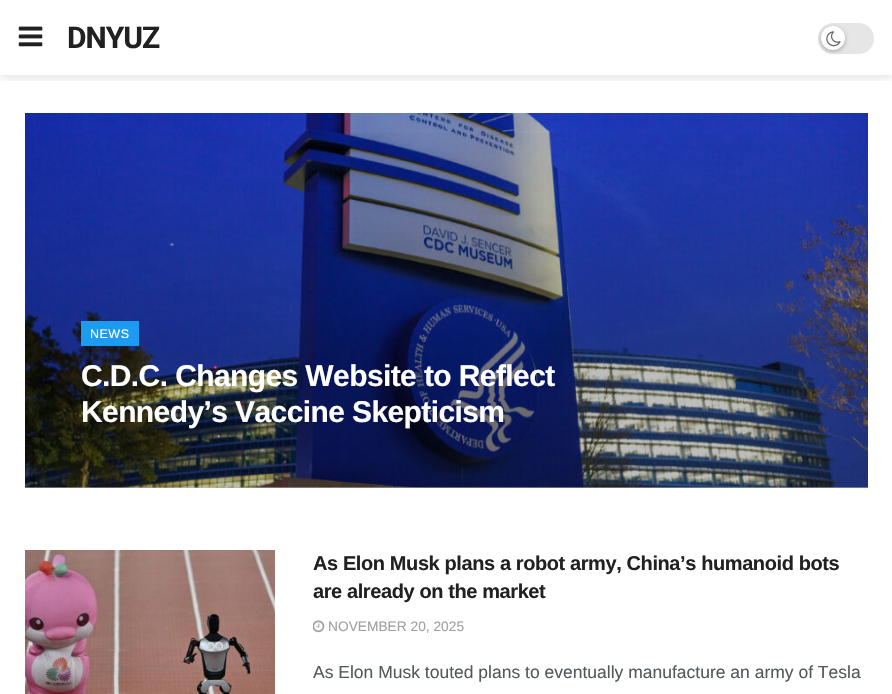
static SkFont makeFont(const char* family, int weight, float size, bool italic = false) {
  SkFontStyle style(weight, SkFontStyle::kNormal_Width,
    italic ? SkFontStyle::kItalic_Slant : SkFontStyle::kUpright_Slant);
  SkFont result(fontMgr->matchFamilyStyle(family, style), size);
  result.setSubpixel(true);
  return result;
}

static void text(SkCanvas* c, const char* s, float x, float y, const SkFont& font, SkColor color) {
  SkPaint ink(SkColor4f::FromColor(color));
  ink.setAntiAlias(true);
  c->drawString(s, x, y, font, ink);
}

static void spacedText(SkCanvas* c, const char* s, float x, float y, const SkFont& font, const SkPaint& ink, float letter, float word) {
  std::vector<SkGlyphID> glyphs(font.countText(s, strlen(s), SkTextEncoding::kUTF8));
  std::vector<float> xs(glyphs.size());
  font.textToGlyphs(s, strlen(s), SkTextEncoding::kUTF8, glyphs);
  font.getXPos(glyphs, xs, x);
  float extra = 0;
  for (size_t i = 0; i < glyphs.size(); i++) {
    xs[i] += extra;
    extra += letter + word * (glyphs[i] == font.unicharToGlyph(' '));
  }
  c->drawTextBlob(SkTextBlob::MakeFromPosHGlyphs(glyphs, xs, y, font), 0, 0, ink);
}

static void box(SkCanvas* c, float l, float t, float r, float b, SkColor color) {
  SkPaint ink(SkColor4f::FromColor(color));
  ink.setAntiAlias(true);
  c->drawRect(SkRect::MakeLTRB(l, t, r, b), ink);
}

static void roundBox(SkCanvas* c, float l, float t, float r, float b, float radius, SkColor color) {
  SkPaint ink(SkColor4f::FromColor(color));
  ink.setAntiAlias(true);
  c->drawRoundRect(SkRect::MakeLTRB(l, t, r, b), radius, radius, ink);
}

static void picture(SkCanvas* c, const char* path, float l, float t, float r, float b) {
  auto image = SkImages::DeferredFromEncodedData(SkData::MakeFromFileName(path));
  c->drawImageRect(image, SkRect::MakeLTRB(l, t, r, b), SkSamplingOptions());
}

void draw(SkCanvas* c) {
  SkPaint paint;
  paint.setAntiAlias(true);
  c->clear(0xffffffff);
  c->save();
  c->clipRect(SkRect::MakeLTRB(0, 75, 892, 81));
  paint.setColor(0x1a000000);
  paint.setMaskFilter(SkMaskFilter::MakeBlur(kNormal_SkBlurStyle, 4));
  c->drawRect(SkRect::MakeLTRB(0, 3, 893, 78), paint);
  paint.setMaskFilter(nullptr);
  c->restore();
  picture(c, "img_01.png", 18, 26, 43, 47);
  SkFont face1 = makeFont("Roboto", 700, 30);
  paint.setColor(0xff212121);
  spacedText(c, "DNYUZ", 67, 48, face1, paint, -1, 0);
  roundBox(c, 818, 23, 874, 54, 15.5f, 0xffe6e6e6);
  paint.setColor(0x4d000000);
  paint.setMaskFilter(SkMaskFilter::MakeBlur(kNormal_SkBlurStyle, 2));
  c->drawRoundRect(SkRect::MakeLTRB(821, 28, 845, 51), 11.5f, 11.5f, paint);
  paint.setMaskFilter(nullptr);
  paint.setColor(0xffffffff);
  c->drawCircle(833, 38, 12, paint);
  picture(c, "img_02.png", 826, 31, 841, 47);
  box(c, 25, 487, 868, 488, 0xfff7f7f7);
  picture(c, "img_03.png", 25, 113, 868, 488);
  {
    const SkColor colors[] = {0x00000000, 0x40000000, 0x40000000};
    const float stops[] = {0, 0.65f, 1};
    const SkPoint ends[] = {{428, 112}, {428, 488}};
    paint.setShader(SkGradientShader::MakeLinear(ends, colors, stops, 3, SkTileMode::kClamp));
    paint.setAlpha(255);
  }
  c->drawRect(SkRect::MakeLTRB(25, 133, 868, 488), paint);
  box(c, 81, 321, 139, 346, 0xff1d9bf0);
  SkFont face2 = makeFont("Liberation Sans", 400, 12.5f);
  paint.setShader(nullptr);
  paint.setColor(0xffffffff);
  spacedText(c, "NEWS", 90, 338, face2, paint, 0.5f, 0);
  SkFont face3 = makeFont("Liberation Sans", 700, 30);
  spacedText(c, "C.D.C. Changes Website to Reflect", 81, 386, face3, paint, -0.6f, 0);
  spacedText(c, "Kennedy’s Vaccine Skepticism", 81, 422, face3, paint, -0.6f, 0);
  text(c, ",", 184, 464, face2, 0xff2b2d22);
  picture(c, "img_04.png", 25, 550, 275, 694);
  SkFont face4 = makeFont("Liberation Sans", 700, 20);
  paint.setColor(0xff212121);
  spacedText(c, "As Elon Musk plans a robot army, China’s humanoid bots", 313, 570, face4, paint, -0.4f, 0);
  spacedText(c, "are already on the market", 313, 598, face4, paint, -0.4f, 0);
  picture(c, "img_05.png", 313, 620, 325, 633);
  SkFont face5 = makeFont("Liberation Sans", 400, 13.75f);
  text(c, "NOVEMBER 20, 2025", 328, 631, face5, 0xffa0a0a0);
  SkFont face6 = makeFont("Liberation Sans", 400, 17.5f);
  text(c, "As Elon Musk touted plans to eventually manufacture an army of Tesla", 313, 678, face6, 0xff53585c);
}
